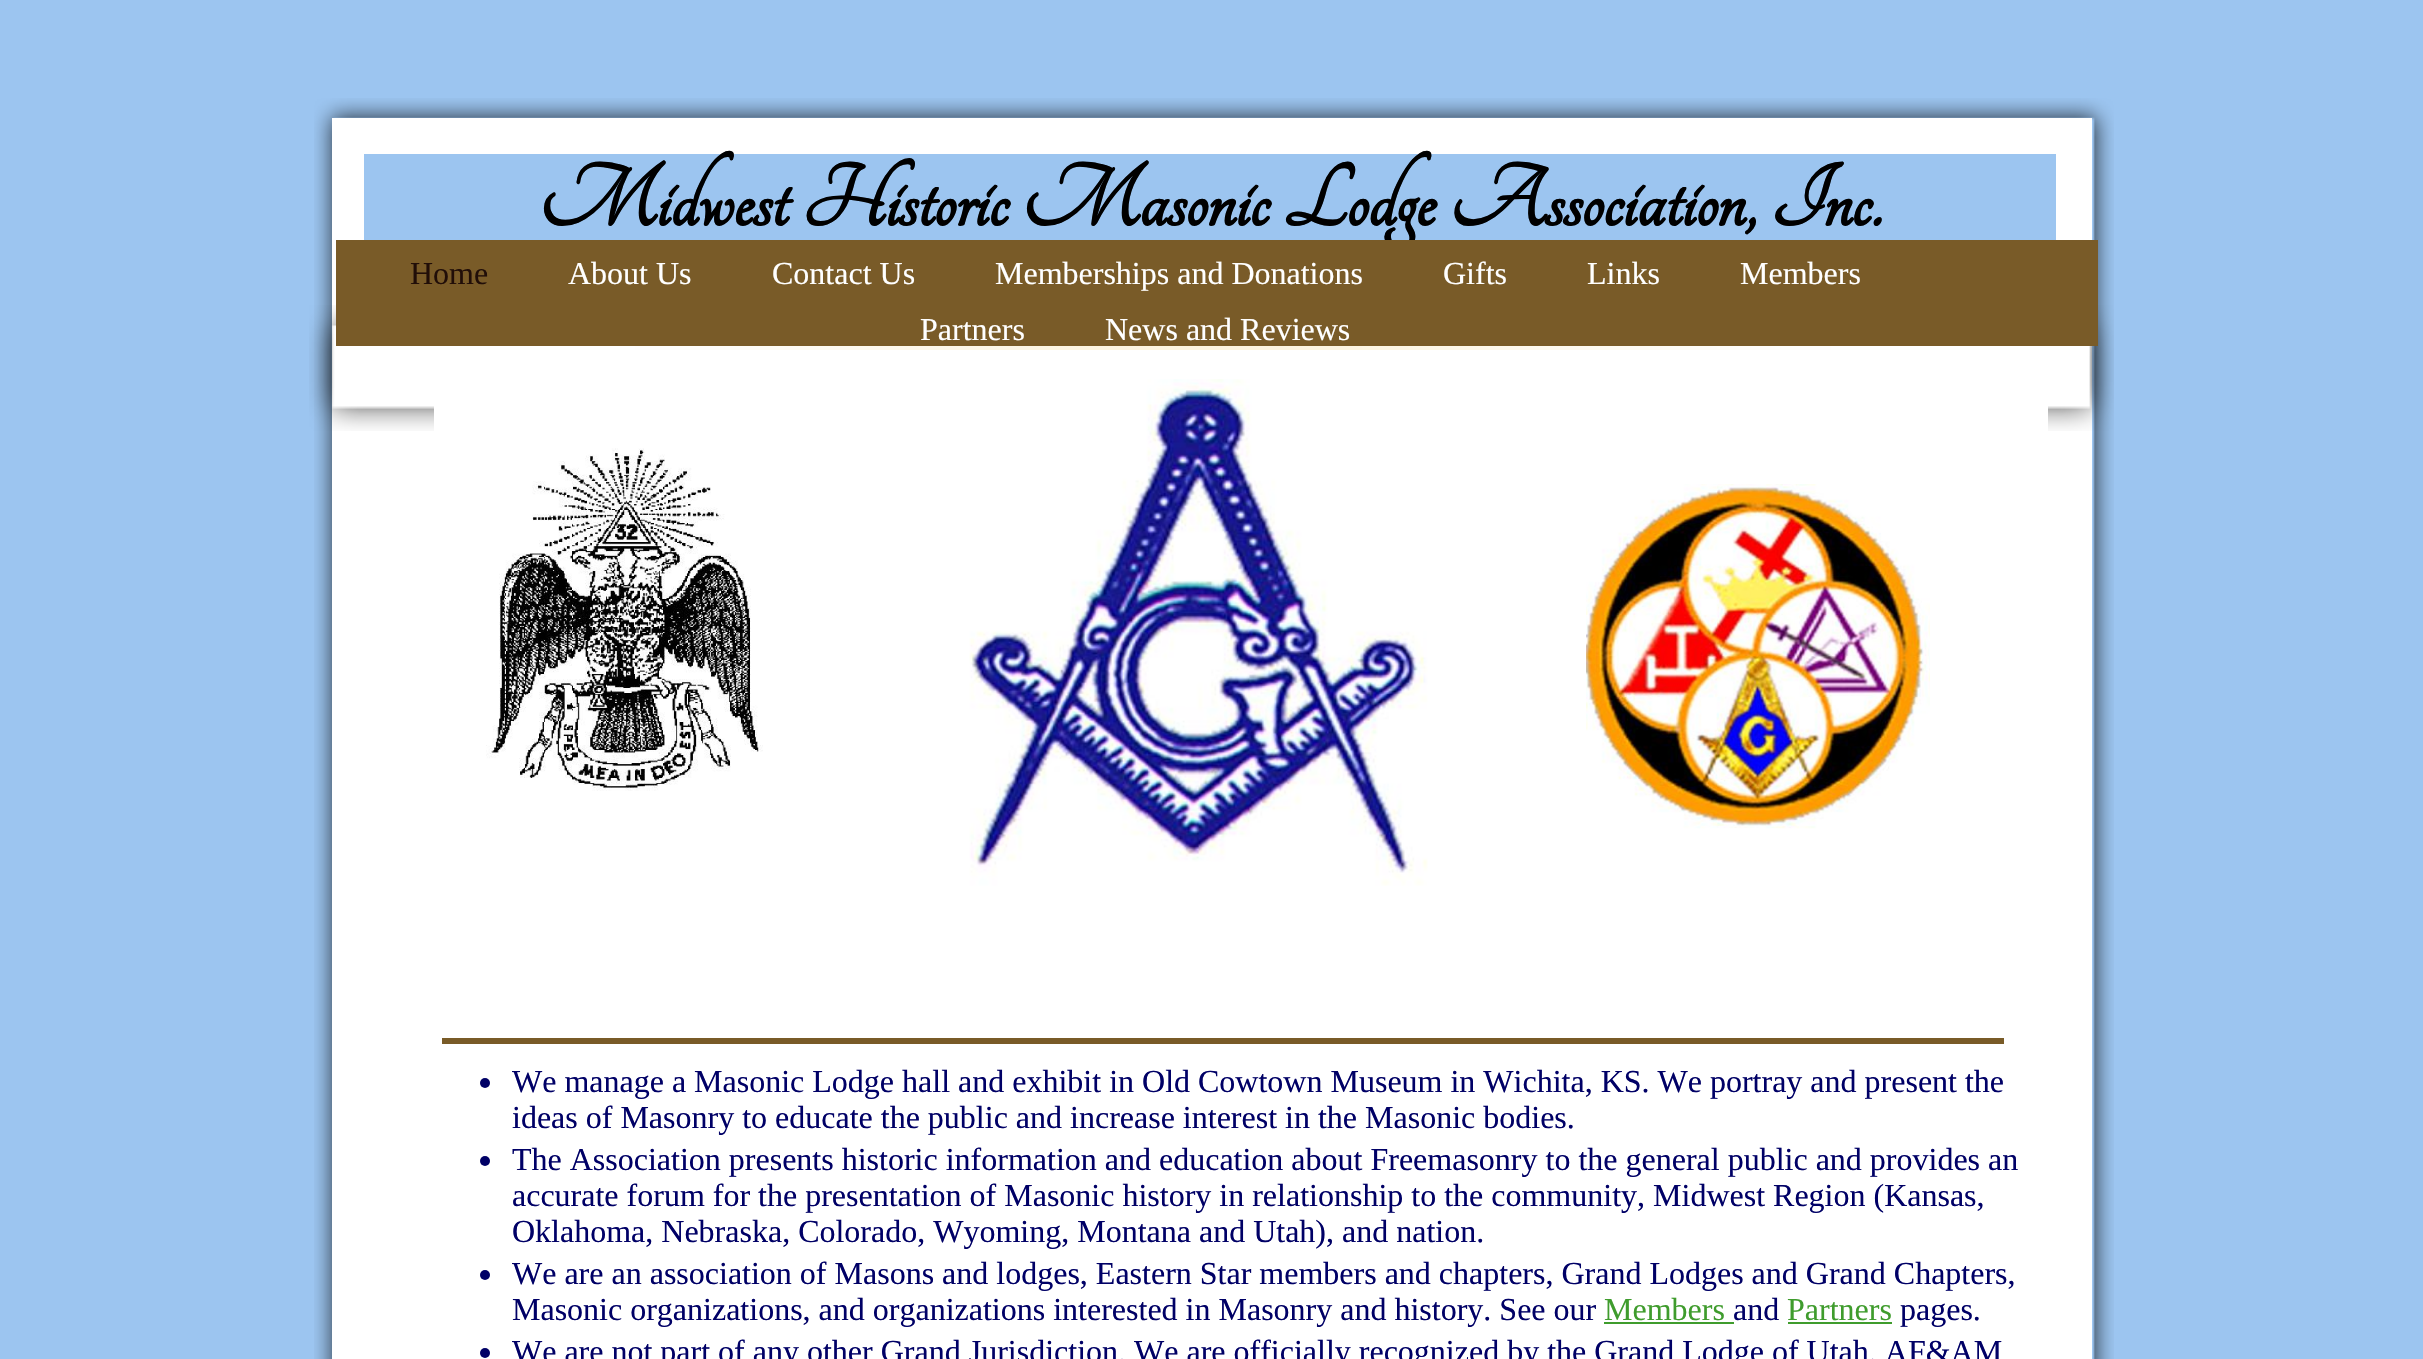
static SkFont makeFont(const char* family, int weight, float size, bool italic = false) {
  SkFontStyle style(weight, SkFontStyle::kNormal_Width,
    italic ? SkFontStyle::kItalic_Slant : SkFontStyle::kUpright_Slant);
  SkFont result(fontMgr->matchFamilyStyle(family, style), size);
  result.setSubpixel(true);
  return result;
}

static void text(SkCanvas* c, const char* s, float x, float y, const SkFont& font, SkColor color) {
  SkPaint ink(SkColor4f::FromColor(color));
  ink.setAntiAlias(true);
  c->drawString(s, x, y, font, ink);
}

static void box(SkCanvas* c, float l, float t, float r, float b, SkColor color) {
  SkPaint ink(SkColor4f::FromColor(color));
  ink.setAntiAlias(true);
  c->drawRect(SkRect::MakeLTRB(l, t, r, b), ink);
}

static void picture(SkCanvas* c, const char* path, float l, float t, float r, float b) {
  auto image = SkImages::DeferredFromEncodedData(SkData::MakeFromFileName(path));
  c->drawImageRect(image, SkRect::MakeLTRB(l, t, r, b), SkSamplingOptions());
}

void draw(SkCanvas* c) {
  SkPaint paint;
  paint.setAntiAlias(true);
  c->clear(0xff9cc5f0);
  picture(c, "img_01.png", 314, 98, 2114, 1359);
  box(c, 332, 118, 2092, 1359, 0xffffffff);
  box(c, 364, 154, 2056, 240, 0xff9cc5f0);
  SkFont face1 = makeFont("Tangerine", 700, 96);
  text(c, "Midwest Historic Masonic Lodge Association, Inc.", 539, 226, face1, 0xff000000);
  picture(c, "img_02.png", 309, 305, 2114, 431);
  box(c, 336, 240, 2098, 346, 0xff795b28);
  SkFont face2 = makeFont("Liberation Serif", 400, 32);
  text(c, "Home", 410, 284, face2, 0xff210e08);
  text(c, "About Us", 568, 284, face2, 0xffffffff);
  text(c, "Contact Us", 772, 284, face2, 0xffffffff);
  text(c, "Memberships and Donations", 995, 284, face2, 0xffffffff);
  text(c, "Gifts", 1443, 284, face2, 0xffffffff);
  text(c, "Links", 1587, 284, face2, 0xffffffff);
  text(c, "Members", 1740, 284, face2, 0xffffffff);
  text(c, "Partners", 920, 340, face2, 0xffffffff);
  text(c, "News and Reviews", 1105, 340, face2, 0xffffffff);
  picture(c, "img_03.png", 635, 346, 1831, 350);
  box(c, 434, 406, 2048, 431, 0xffffffff);
  picture(c, "img_04.png", 969, 379, 1428, 886);
  picture(c, "img_05.png", 486, 448, 763, 791);
  picture(c, "img_06.png", 1586, 484, 1930, 829);
  box(c, 442, 1038, 2004, 1044, 0xff795b28);
  paint.setColor(0xff000066);
  c->drawCircle(485, 1083, 5, paint);
  text(c, "We manage a Masonic Lodge hall and exhibit in Old Cowtown Museum in Wichita, KS. We portray and present the", 512, 1092, face2, 0xff000066);
  text(c, "ideas of Masonry to educate the public and increase interest in the Masonic bodies.", 512, 1128, face2, 0xff000066);
  c->drawCircle(485, 1161, 5, paint);
  text(c, "The Association presents historic information and education about Freemasonry to the general public and provides an", 512, 1170, face2, 0xff000066);
  text(c, "accurate forum for the presentation of Masonic history in relationship to the community, Midwest Region (Kansas,", 512, 1206, face2, 0xff000066);
  text(c, "Oklahoma, Nebraska, Colorado, Wyoming, Montana and Utah), and nation.", 512, 1242, face2, 0xff000066);
  c->drawCircle(485, 1275, 5, paint);
  text(c, "We are an association of Masons and lodges, Eastern Star members and chapters, Grand Lodges and Grand Chapters,", 512, 1284, face2, 0xff000066);
  text(c, "Masonic organizations, and organizations interested in Masonry and history. See our", 512, 1320, face2, 0xff000066);
  text(c, "Members", 1604, 1320, face2, 0xff3f9c2d);
  box(c, 1604, 1322, 1734, 1324, 0xff3f9c2d);
  text(c, "and", 1733, 1320, face2, 0xff000066);
  text(c, "Partners", 1787, 1320, face2, 0xff3f9c2d);
  box(c, 1788, 1322, 1892, 1324, 0xff3f9c2d);
  text(c, "pages.", 1900, 1320, face2, 0xff000066);
  c->drawCircle(485, 1353, 5, paint);
  text(c, "We are not part of any other Grand Jurisdiction. We are officially recognized by the Grand Lodge of Utah, AF&AM", 512, 1362, face2, 0xff000066);
}
